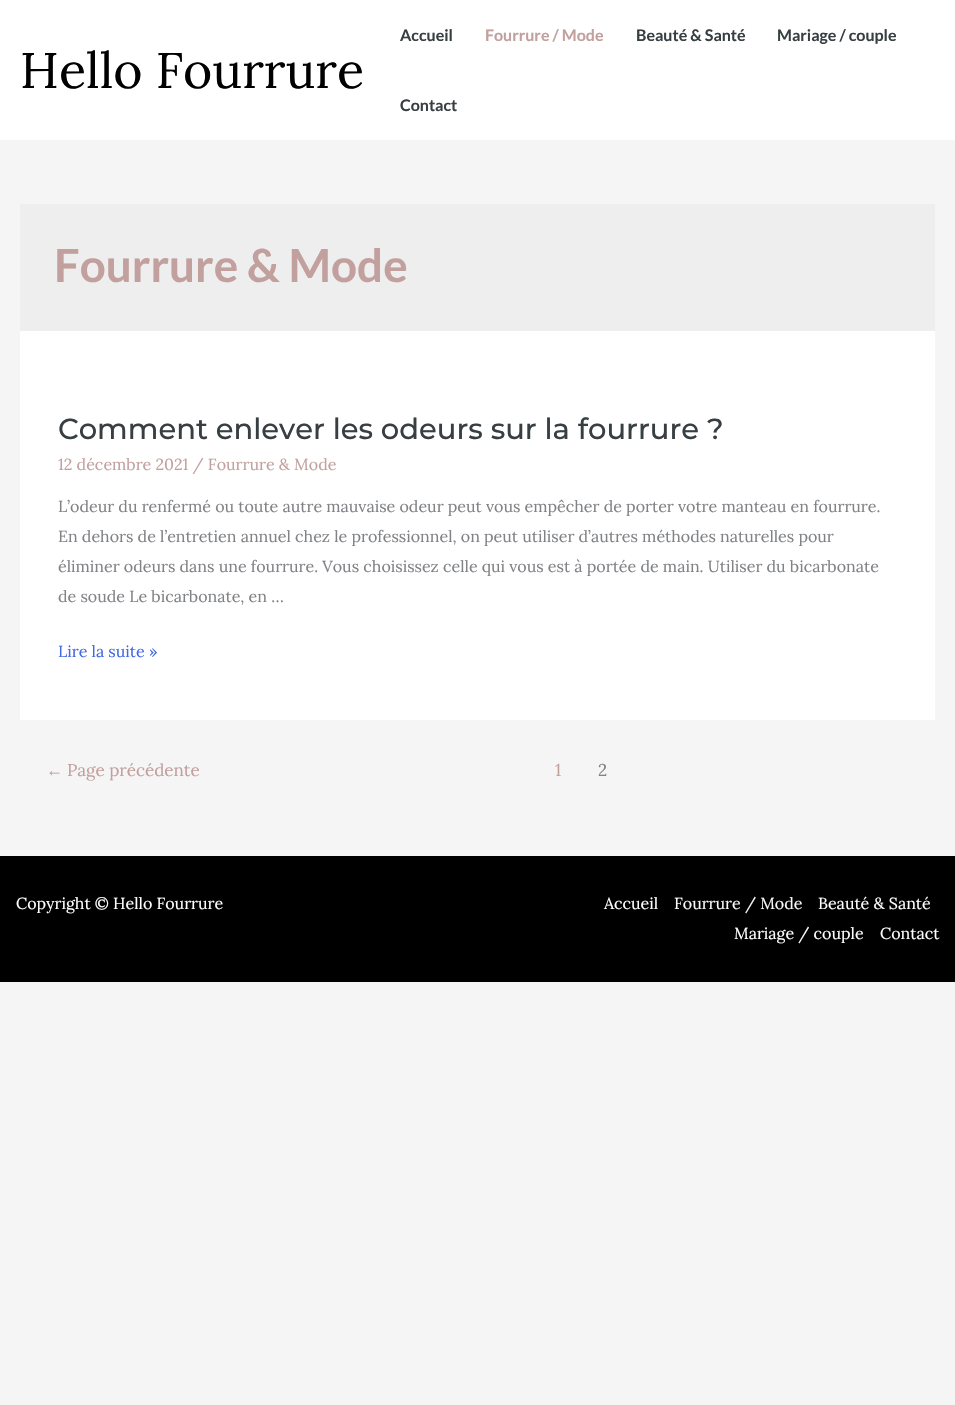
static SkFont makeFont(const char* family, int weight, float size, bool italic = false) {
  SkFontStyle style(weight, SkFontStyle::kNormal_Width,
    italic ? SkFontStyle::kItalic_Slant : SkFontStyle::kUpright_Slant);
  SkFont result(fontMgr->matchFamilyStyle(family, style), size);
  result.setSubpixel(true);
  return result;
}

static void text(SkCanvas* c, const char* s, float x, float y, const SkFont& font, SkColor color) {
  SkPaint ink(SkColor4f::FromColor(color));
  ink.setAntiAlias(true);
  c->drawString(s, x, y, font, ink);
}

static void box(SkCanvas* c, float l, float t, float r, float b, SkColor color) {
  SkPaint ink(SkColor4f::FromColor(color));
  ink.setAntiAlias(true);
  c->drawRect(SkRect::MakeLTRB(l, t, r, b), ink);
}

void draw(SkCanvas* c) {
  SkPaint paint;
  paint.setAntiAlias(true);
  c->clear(0xfff5f5f5);
  box(c, 0, 0, 955, 140, 0xffffffff);
  SkFont face1 = makeFont("Lora", 400, 50);
  text(c, "Hello Fourrure", 20, 88, face1, 0xff000000);
  SkFont face2 = makeFont("Lato", 700, 16);
  text(c, "Accueil", 400, 41, face2, 0xff383f42);
  text(c, "Fourrure / Mode", 485, 41, face2, 0xffc2a09e);
  text(c, "Beauté & Santé", 636, 41, face2, 0xff383f42);
  text(c, "Mariage / couple", 777, 41, face2, 0xff383f42);
  text(c, "Contact", 400, 111, face2, 0xff383f42);
  box(c, 20, 204, 935, 331, 0xffeeeeee);
  SkFont face3 = makeFont("Lato", 700, 45.75f);
  text(c, "Fourrure & Mode", 54, 282, face3, 0xffc2a09e);
  box(c, 20, 331, 935, 720, 0xffffffff);
  SkFont face4 = makeFont("Montserrat", 100, 29);
  text(c, "Comment enlever les odeurs sur la fourrure ?", 58, 439, face4, 0xff383f42);
  SkFont face5 = makeFont("Lora", 400, 16);
  text(c, "12 décembre 2021 / Fourrure & Mode", 58, 470, face5, 0xffc2a09e);
  text(c, "L’odeur du renfermé ou toute autre mauvaise odeur peut vous empêcher de porter votre manteau en fourrure.", 58, 512, face5, 0xff808285);
  text(c, "En dehors de l’entretien annuel chez le professionnel, on peut utiliser d’autres méthodes naturelles pour", 58, 542, face5, 0xff808285);
  text(c, "éliminer odeurs dans une fourrure. Vous choisissez celle qui vous est à portée de main. Utiliser du bicarbonate", 58, 572, face5, 0xff808285);
  text(c, "de soude Le bicarbonate, en …", 58, 602, face5, 0xff808285);
  text(c, "Lire la suite »", 58, 657, face5, 0xff4169e1);
  SkFont face6 = makeFont("Liberation Serif", 400, 17);
  text(c, "←", 46, 776, face6, 0xffc2a09e);
  SkFont face7 = makeFont("Lora", 400, 17);
  text(c, "Page précédente", 67, 776, face7, 0xffc2a09e);
  text(c, "1", 555, 776, face7, 0xffc2a09e);
  text(c, "2", 598, 776, face7, 0xff808285);
  box(c, 0, 856, 955, 982, 0xff000000);
  text(c, "Copyright © Hello Fourrure", 16, 909, face5, 0xffffffff);
  text(c, "Accueil", 604, 909, face5, 0xffffffff);
  text(c, "Fourrure / Mode", 674, 909, face5, 0xfff9f9f9);
  text(c, "Beauté & Santé", 818, 909, face5, 0xffffffff);
  text(c, "Mariage / couple", 734, 939, face5, 0xffffffff);
  text(c, "Contact", 880, 939, face5, 0xffffffff);
}
